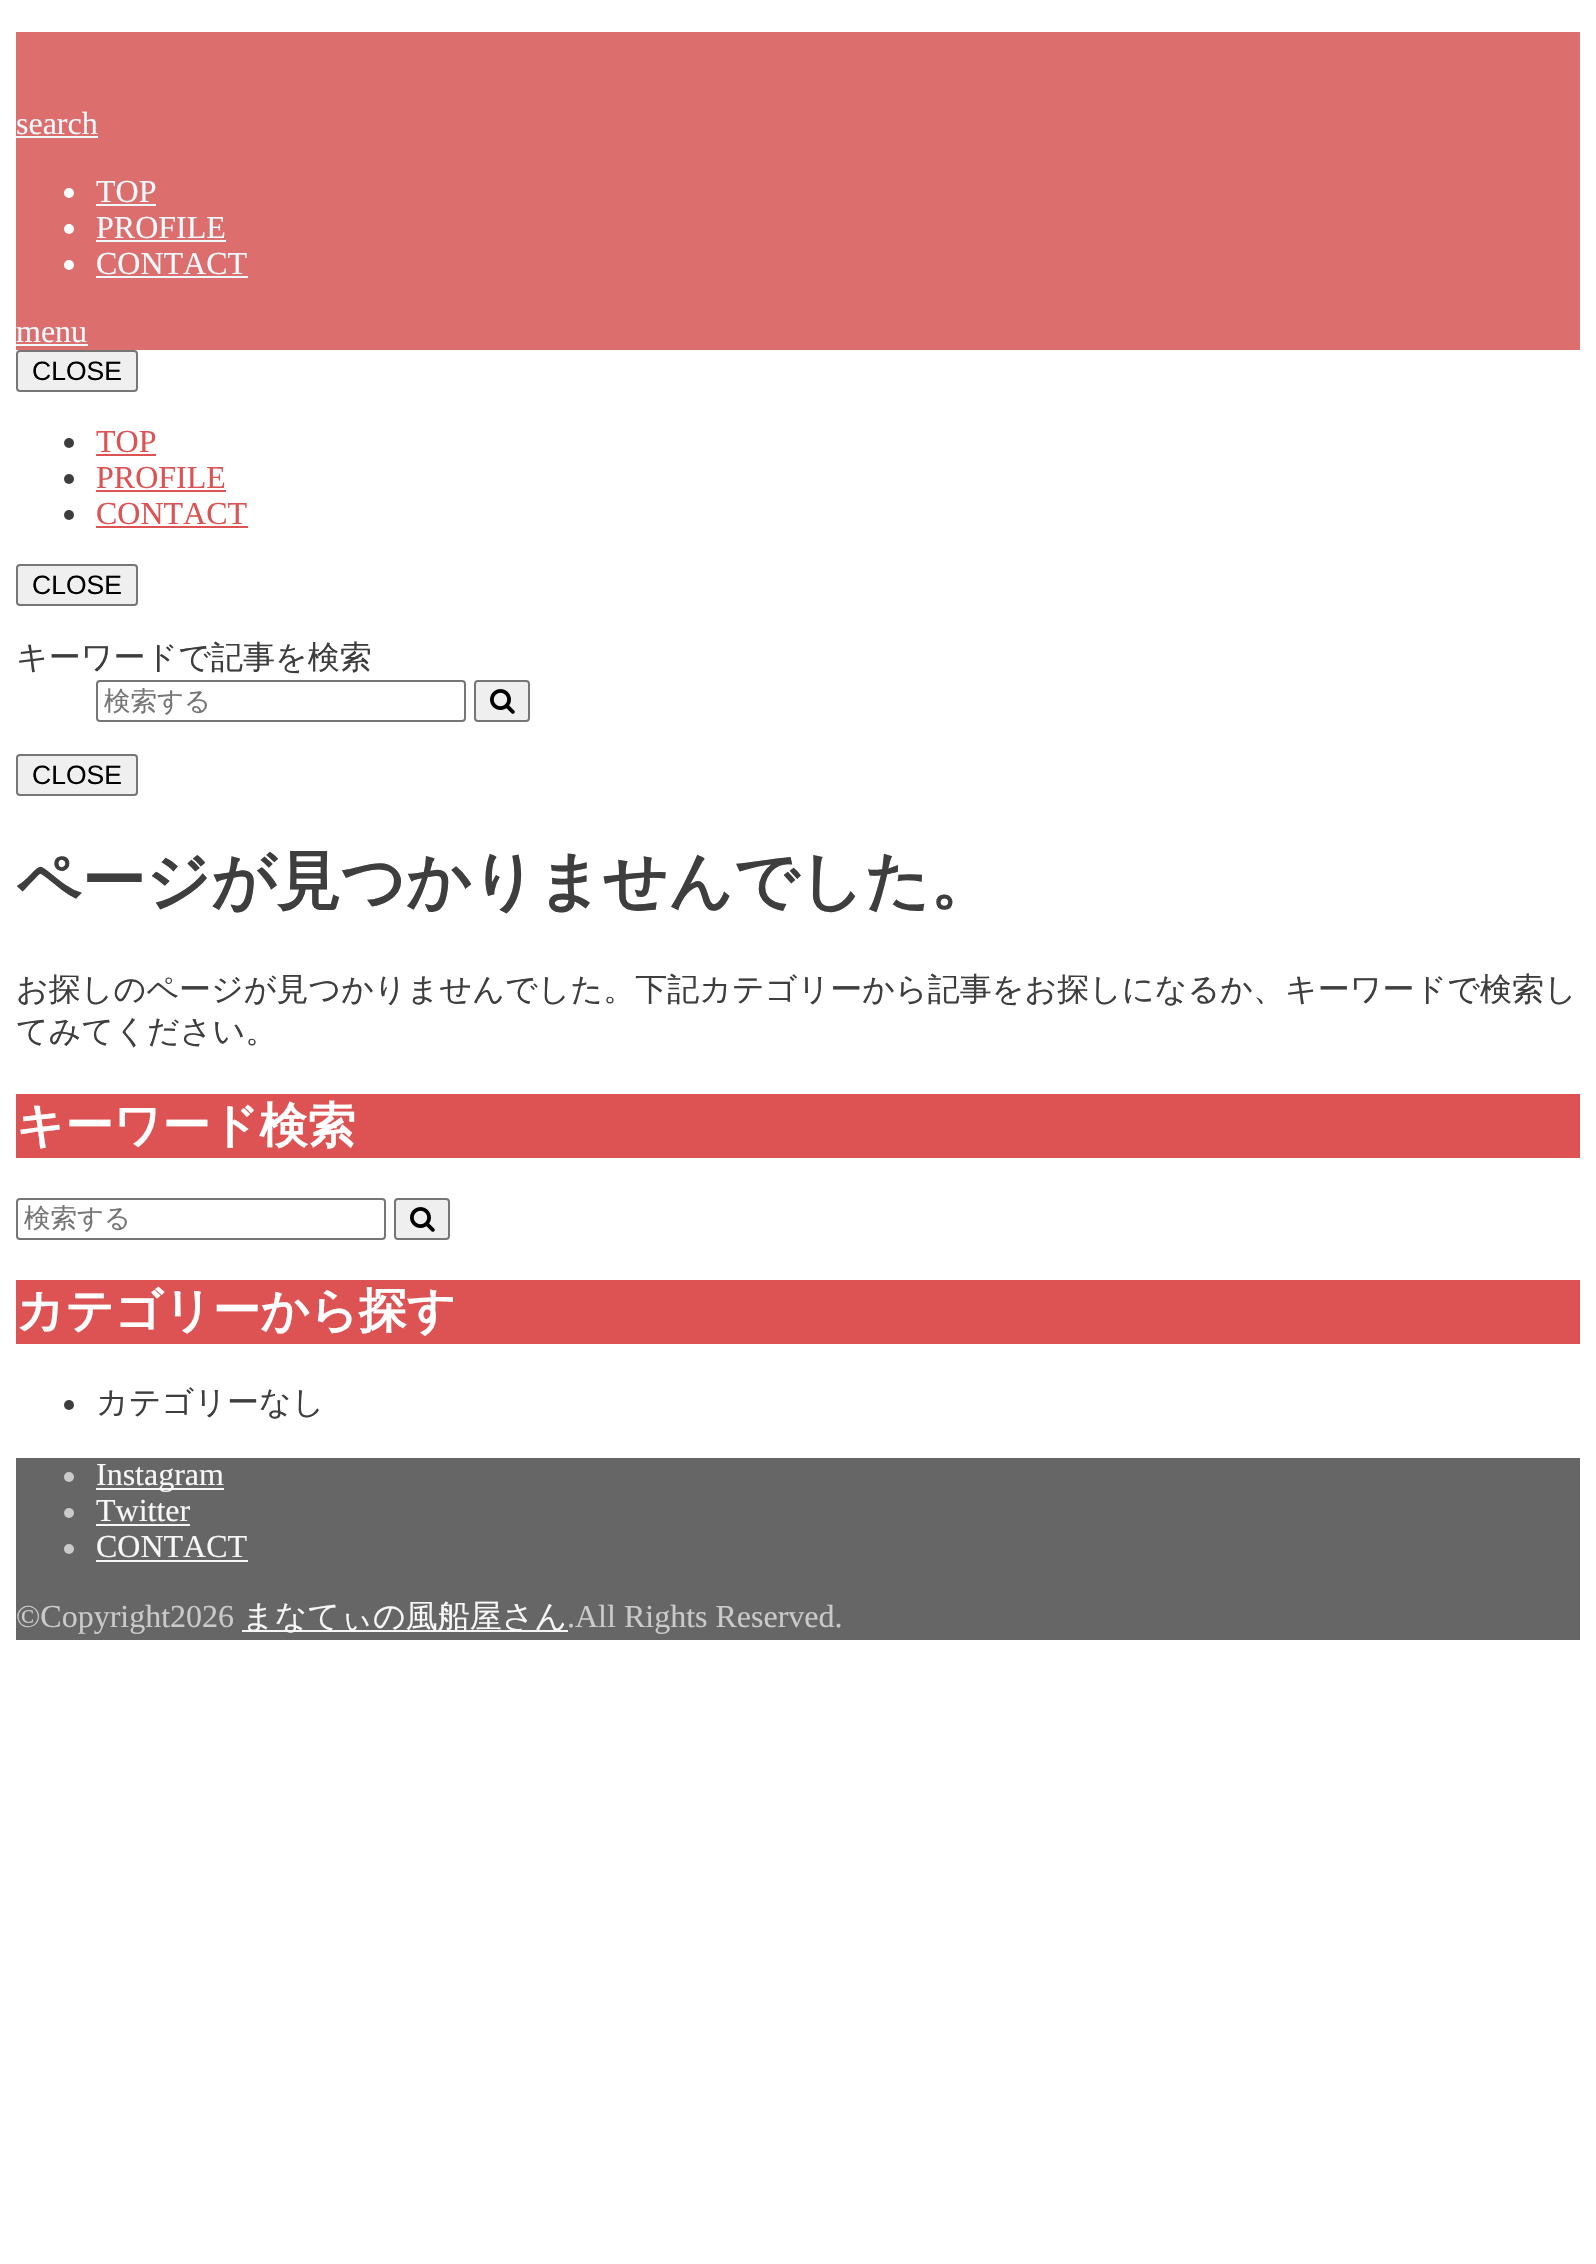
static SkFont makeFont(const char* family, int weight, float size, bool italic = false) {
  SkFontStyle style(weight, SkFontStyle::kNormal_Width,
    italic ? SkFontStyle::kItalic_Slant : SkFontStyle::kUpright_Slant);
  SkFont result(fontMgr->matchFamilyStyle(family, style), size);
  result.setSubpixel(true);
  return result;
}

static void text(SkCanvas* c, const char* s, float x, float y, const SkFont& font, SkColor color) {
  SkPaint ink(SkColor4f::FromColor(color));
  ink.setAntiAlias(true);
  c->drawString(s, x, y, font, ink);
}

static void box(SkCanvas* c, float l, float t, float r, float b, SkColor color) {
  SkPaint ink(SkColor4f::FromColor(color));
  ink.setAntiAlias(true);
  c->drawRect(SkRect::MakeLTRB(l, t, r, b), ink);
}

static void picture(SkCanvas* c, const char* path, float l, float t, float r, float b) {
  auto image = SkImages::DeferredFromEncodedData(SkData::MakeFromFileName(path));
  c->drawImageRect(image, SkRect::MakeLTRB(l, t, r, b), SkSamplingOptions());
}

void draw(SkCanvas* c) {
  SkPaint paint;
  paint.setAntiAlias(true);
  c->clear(0xffffffff);
  box(c, 16, 32, 1580, 350, 0xffdd6e6e);
  SkFont face1 = makeFont("Liberation Serif", 400, 32);
  text(c, "search", 16, 134, face1, 0xffedf9fc);
  box(c, 16, 136, 98, 138, 0xffedf9fc);
  paint.setColor(0xffffffff);
  c->drawCircle(69, 193, 5, paint);
  text(c, "TOP", 96, 202, face1, 0xffedf9fc);
  box(c, 96, 204, 156, 206, 0xffedf9fc);
  c->drawCircle(69, 229, 5, paint);
  text(c, "PROFILE", 96, 238, face1, 0xffedf9fc);
  box(c, 96, 240, 226, 242, 0xffedf9fc);
  c->drawCircle(69, 265, 5, paint);
  text(c, "CONTACT", 96, 274, face1, 0xffedf9fc);
  box(c, 96, 276, 248, 278, 0xffedf9fc);
  text(c, "menu", 16, 342, face1, 0xffedf9fc);
  box(c, 16, 344, 88, 346, 0xffedf9fc);
  paint.setColor(0xffefefef);
  c->drawRoundRect(SkRect::MakeLTRB(17, 351, 137, 391), 3, 3, paint);
  paint.setStyle(SkPaint::kStroke_Style);
  paint.setStrokeWidth(2);
  paint.setColor(0xff767676);
  c->drawRoundRect(SkRect::MakeLTRB(17, 351, 137, 391), 3, 3, paint);
  SkFont face2 = makeFont("Liberation Sans", 400, 26.5f);
  text(c, "CLOSE", 32, 380, face2, 0xff000000);
  paint.setStyle(SkPaint::kFill_Style);
  paint.setColor(0xff3e3e3e);
  c->drawCircle(69, 443, 5, paint);
  text(c, "TOP", 96, 452, face1, 0xffdd5252);
  box(c, 96, 454, 156, 456, 0xffdd5252);
  c->drawCircle(69, 479, 5, paint);
  text(c, "PROFILE", 96, 488, face1, 0xffdd5252);
  box(c, 96, 490, 226, 492, 0xffdd5252);
  c->drawCircle(69, 515, 5, paint);
  text(c, "CONTACT", 96, 524, face1, 0xffdd5252);
  box(c, 96, 526, 248, 528, 0xffdd5252);
  paint.setColor(0xffefefef);
  c->drawRoundRect(SkRect::MakeLTRB(17, 565, 137, 605), 3, 3, paint);
  paint.setStyle(SkPaint::kStroke_Style);
  paint.setColor(0xff767676);
  c->drawRoundRect(SkRect::MakeLTRB(17, 565, 137, 605), 3, 3, paint);
  text(c, "CLOSE", 32, 594, face2, 0xff000000);
  SkFont face3 = makeFont("WenQuanYi Zen Hei", 500, 32);
  text(c, "キーワードで記事を検索", 16, 668, face3, 0xff3e3e3e);
  c->drawRoundRect(SkRect::MakeLTRB(97, 681, 465, 721), 3, 3, paint);
  SkFont face4 = makeFont("WenQuanYi Zen Hei", 500, 26.5f);
  text(c, "検索する", 104, 710, face4, 0xff757575);
  paint.setStyle(SkPaint::kFill_Style);
  paint.setColor(0xffefefef);
  c->drawRoundRect(SkRect::MakeLTRB(475, 681, 529, 721), 3, 3, paint);
  paint.setStyle(SkPaint::kStroke_Style);
  paint.setColor(0xff767676);
  c->drawRoundRect(SkRect::MakeLTRB(475, 681, 529, 721), 3, 3, paint);
  picture(c, "img_01.png", 490, 689, 515, 714);
  paint.setStyle(SkPaint::kFill_Style);
  paint.setColor(0xffefefef);
  c->drawRoundRect(SkRect::MakeLTRB(17, 755, 137, 795), 3, 3, paint);
  paint.setStyle(SkPaint::kStroke_Style);
  paint.setColor(0xff767676);
  c->drawRoundRect(SkRect::MakeLTRB(17, 755, 137, 795), 3, 3, paint);
  text(c, "CLOSE", 32, 784, face2, 0xff000000);
  SkFont face5 = makeFont("WenQuanYi Zen Hei", 700, 64);
  text(c, "ページが見つかりませんでした。", 16, 903, face5, 0xff3e3e3e);
  text(c, "お探しのページが見つかりませんでした。下記カテゴリーから記事をお探しになるか、キーワードで検索し", 16, 1000, face3, 0xff3e3e3e);
  text(c, "てみてください。", 16, 1042, face3, 0xff3e3e3e);
  box(c, 16, 1094, 1580, 1158, 0xffdd5252);
  SkFont face6 = makeFont("WenQuanYi Zen Hei", 700, 48);
  text(c, "キーワード検索", 16, 1142, face6, 0xffffffff);
  c->drawRoundRect(SkRect::MakeLTRB(17, 1199, 385, 1239), 3, 3, paint);
  text(c, "検索する", 24, 1227, face4, 0xff757575);
  paint.setStyle(SkPaint::kFill_Style);
  paint.setColor(0xffefefef);
  c->drawRoundRect(SkRect::MakeLTRB(395, 1199, 449, 1239), 3, 3, paint);
  paint.setStyle(SkPaint::kStroke_Style);
  paint.setColor(0xff767676);
  c->drawRoundRect(SkRect::MakeLTRB(395, 1199, 449, 1239), 3, 3, paint);
  picture(c, "img_01.png", 410, 1207, 435, 1232);
  box(c, 16, 1280, 1580, 1344, 0xffdd5252);
  text(c, "カテゴリーから探す", 16, 1327, face6, 0xffffffff);
  paint.setStyle(SkPaint::kFill_Style);
  paint.setColor(0xff3e3e3e);
  c->drawCircle(69, 1405, 5, paint);
  text(c, "カテゴリーなし", 96, 1413, face3, 0xff3e3e3e);
  box(c, 16, 1458, 1580, 1640, 0xff666666);
  paint.setColor(0xffcacaca);
  c->drawCircle(69, 1477, 5, paint);
  box(c, 96, 1488, 224, 1490, 0xfff7f7f7);
  text(c, "Instagram", 96, 1485, face1, 0xfff7f7f7);
  c->drawCircle(69, 1513, 5, paint);
  text(c, "Twitter", 96, 1521, face1, 0xfff7f7f7);
  box(c, 96, 1524, 190, 1526, 0xfff7f7f7);
  c->drawCircle(69, 1549, 5, paint);
  text(c, "CONTACT", 96, 1557, face1, 0xfff7f7f7);
  box(c, 96, 1560, 248, 1562, 0xfff7f7f7);
  text(c, "©Copyright2026", 16, 1627, face1, 0xffcacaca);
  box(c, 242, 1630, 568, 1632, 0xfff7f7f7);
  text(c, "まなてぃの風船屋さん", 242, 1627, face3, 0xfff7f7f7);
  text(c, ".All Rights Reserved.", 567, 1627, face1, 0xffcacaca);
}
